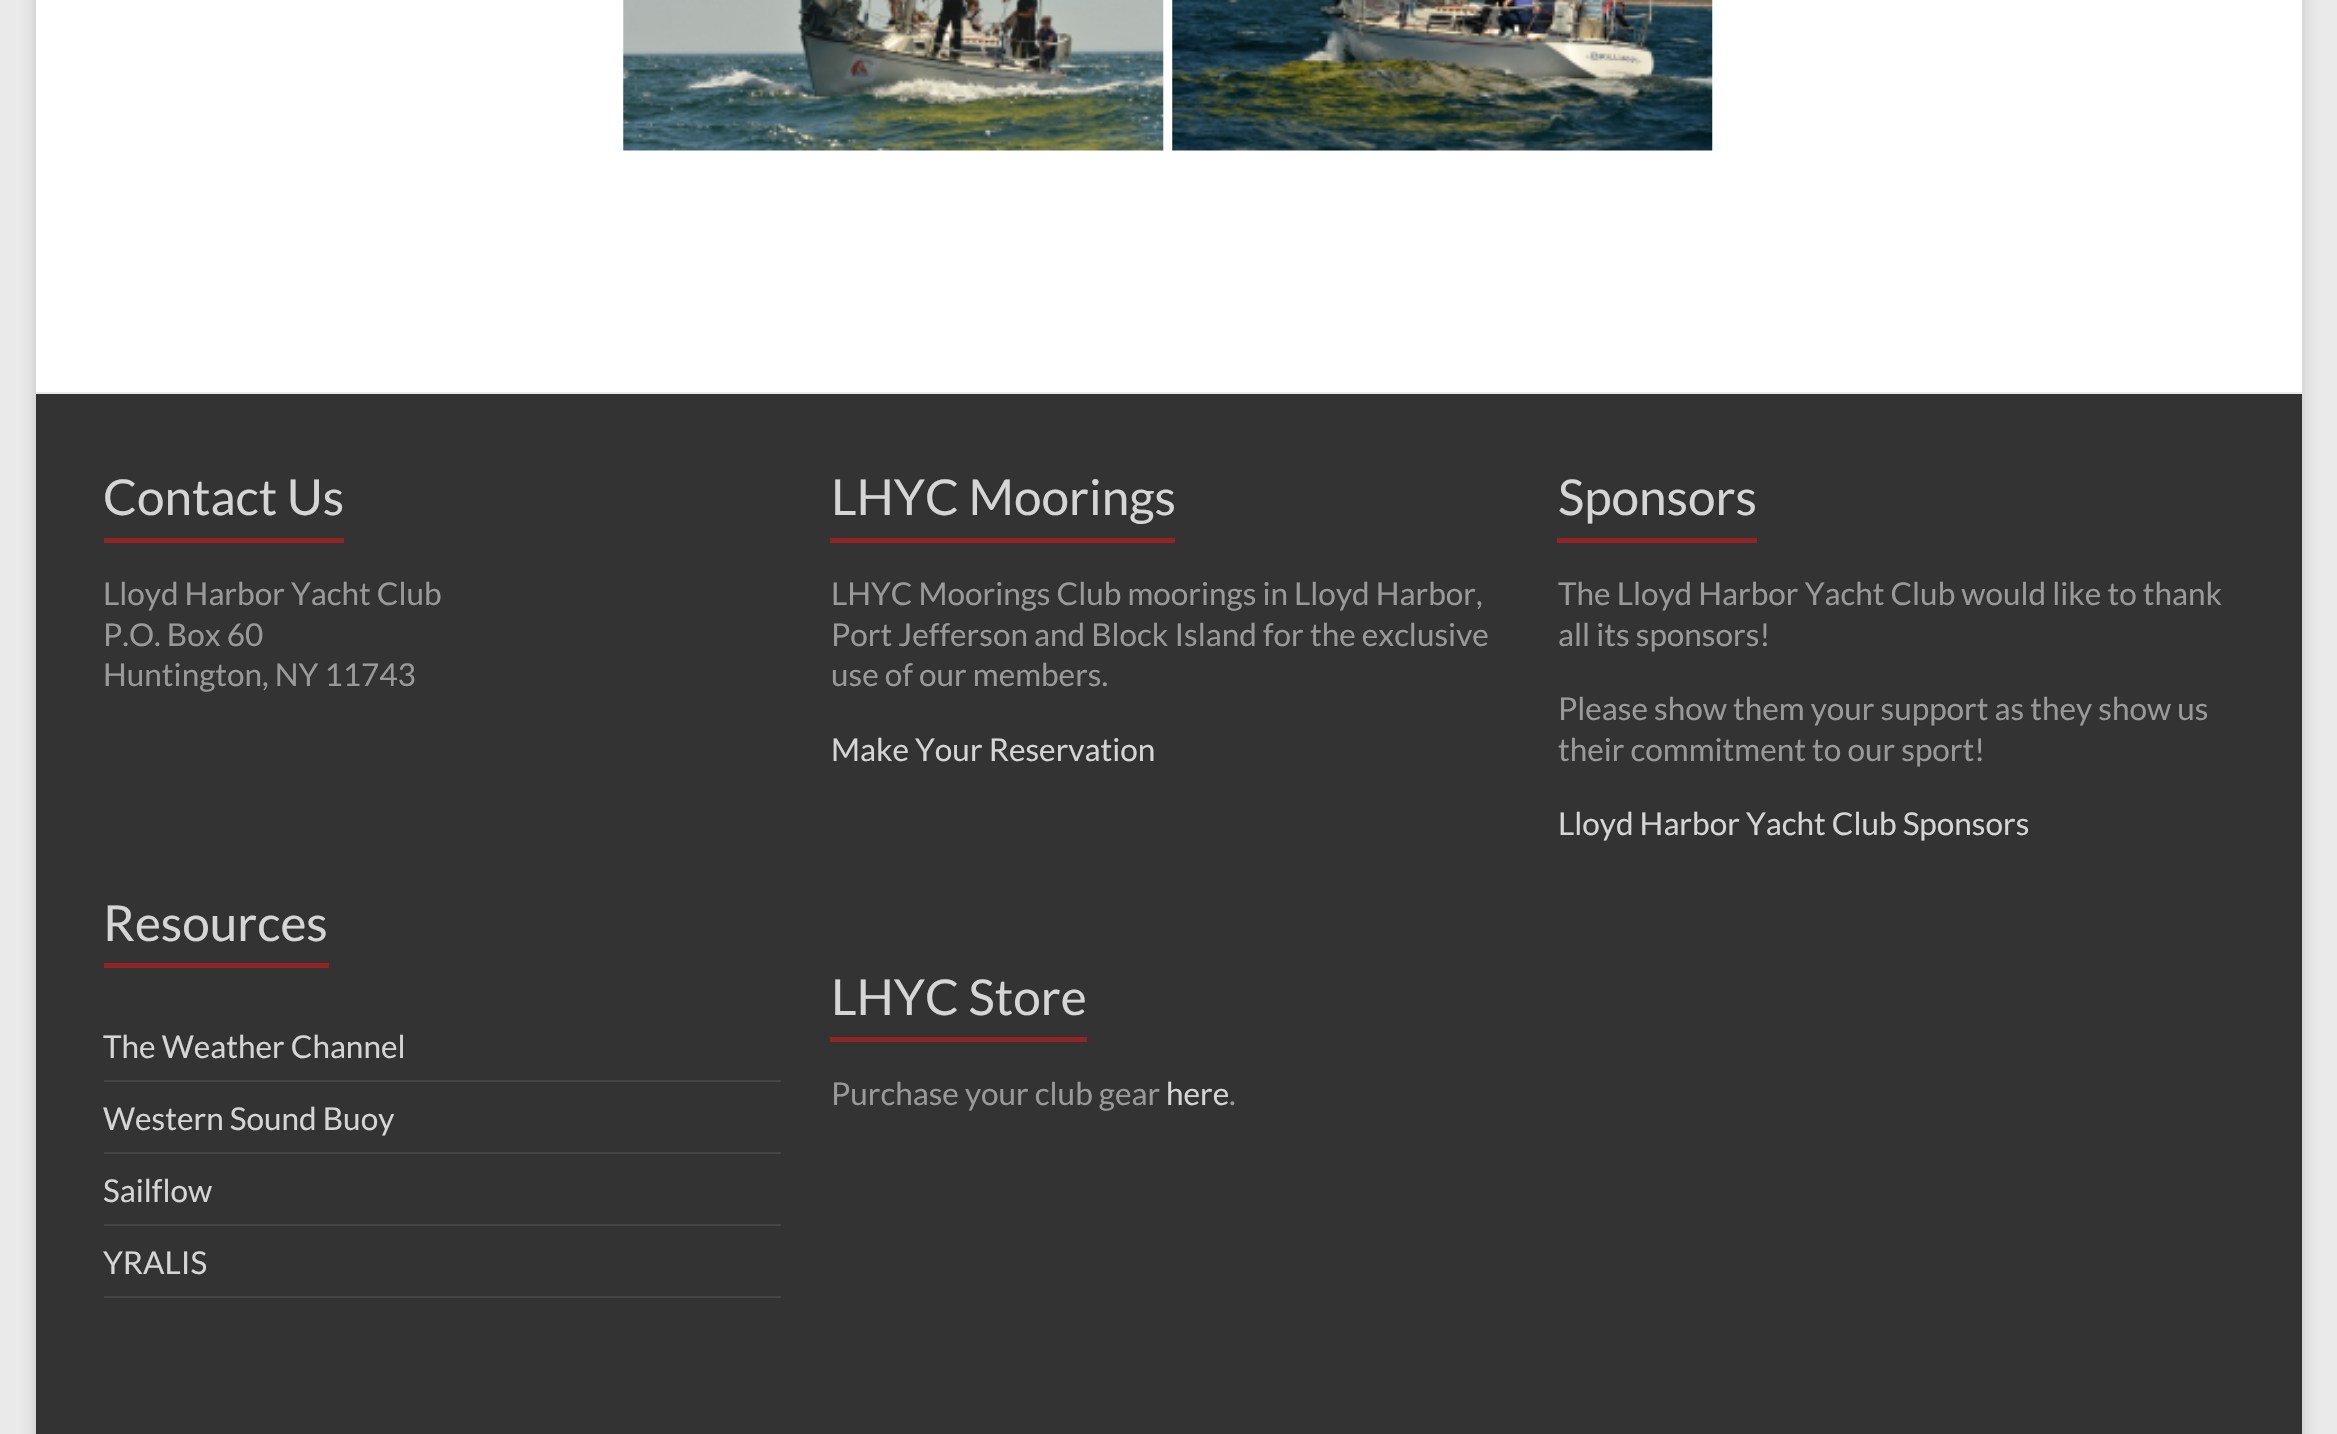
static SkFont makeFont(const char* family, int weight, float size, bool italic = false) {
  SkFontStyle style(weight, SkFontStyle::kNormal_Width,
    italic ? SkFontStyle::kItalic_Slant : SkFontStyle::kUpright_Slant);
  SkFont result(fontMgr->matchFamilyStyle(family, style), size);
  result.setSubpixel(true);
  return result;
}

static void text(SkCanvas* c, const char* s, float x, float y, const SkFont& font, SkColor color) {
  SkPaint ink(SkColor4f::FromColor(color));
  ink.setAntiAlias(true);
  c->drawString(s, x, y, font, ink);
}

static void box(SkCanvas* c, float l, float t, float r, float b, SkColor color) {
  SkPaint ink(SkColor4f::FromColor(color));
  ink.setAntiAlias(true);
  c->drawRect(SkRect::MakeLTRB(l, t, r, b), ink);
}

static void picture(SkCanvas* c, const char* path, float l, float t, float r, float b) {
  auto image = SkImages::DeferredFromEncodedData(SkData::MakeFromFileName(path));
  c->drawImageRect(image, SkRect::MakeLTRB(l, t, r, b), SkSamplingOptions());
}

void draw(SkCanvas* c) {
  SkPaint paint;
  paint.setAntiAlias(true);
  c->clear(0xffeaeaea);
  paint.setColor(0x4d646464);
  paint.setMaskFilter(SkMaskFilter::MakeBlur(kNormal_SkBlurStyle, 7));
  c->drawRect(SkRect::MakeLTRB(36, -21, 2302, 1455), paint);
  paint.setMaskFilter(nullptr);
  box(c, 36, 0, 2302, 392, 0xffffffff);
  picture(c, "img_01.png", 623, 0, 1164, 151);
  picture(c, "img_02.png", 1172, 0, 1713, 151);
  box(c, 36, 394, 2302, 1434, 0xff333333);
  box(c, 36, 392, 2302, 394, 0xffeaeaea);
  SkFont face1 = makeFont("Lato", 400, 49.5f);
  text(c, "Contact Us", 103, 515, face1, 0xffd5d5d5);
  box(c, 104, 538, 344, 543, 0xff912424);
  SkFont face2 = makeFont("Lato", 400, 31.5f);
  text(c, "Lloyd Harbor Yacht Club", 103, 605, face2, 0xff999999);
  text(c, "P.O. Box 60", 103, 646, face2, 0xff999999);
  text(c, "Huntington, NY 11743", 103, 686, face2, 0xff999999);
  text(c, "Resources", 103, 941, face1, 0xffd5d5d5);
  box(c, 104, 963, 329, 968, 0xff912424);
  box(c, 104, 1080, 781, 1082, 0xff444444);
  text(c, "The Weather Channel", 103, 1058, face2, 0xffd5d5d5);
  box(c, 104, 1152, 781, 1154, 0xff444444);
  text(c, "Western Sound Buoy", 103, 1130, face2, 0xffd5d5d5);
  box(c, 104, 1224, 781, 1226, 0xff444444);
  text(c, "Sailflow", 103, 1202, face2, 0xffd5d5d5);
  box(c, 104, 1296, 781, 1298, 0xff444444);
  text(c, "YRALIS", 103, 1274, face2, 0xffd5d5d5);
  text(c, "LHYC Moorings", 831, 515, face1, 0xffd5d5d5);
  box(c, 830, 538, 1175, 543, 0xff912424);
  text(c, "LHYC Moorings Club moorings in Lloyd Harbor,", 831, 605, face2, 0xff999999);
  text(c, "Port Jefferson and Block Island for the exclusive", 831, 646, face2, 0xff999999);
  text(c, "use of our members.", 831, 686, face2, 0xff999999);
  text(c, "Make Your Reservation", 831, 761, face2, 0xffd5d5d5);
  text(c, "LHYC Store", 831, 1015, face1, 0xffd5d5d5);
  box(c, 830, 1037, 1087, 1042, 0xff912424);
  text(c, "Purchase your club gear", 831, 1105, face2, 0xff999999);
  text(c, "here", 1166, 1105, face2, 0xffd5d5d5);
  text(c, ".", 1229, 1105, face2, 0xff999999);
  text(c, "Sponsors", 1558, 515, face1, 0xffd5d5d5);
  box(c, 1557, 538, 1757, 543, 0xff912424);
  text(c, "The Lloyd Harbor Yacht Club would like to thank", 1558, 605, face2, 0xff999999);
  text(c, "all its sponsors!", 1558, 646, face2, 0xff999999);
  text(c, "Please show them your support as they show us", 1558, 720, face2, 0xff999999);
  text(c, "their commitment to our sport!", 1558, 761, face2, 0xff999999);
  text(c, "Lloyd Harbor Yacht Club Sponsors", 1558, 835, face2, 0xffd5d5d5);
}
